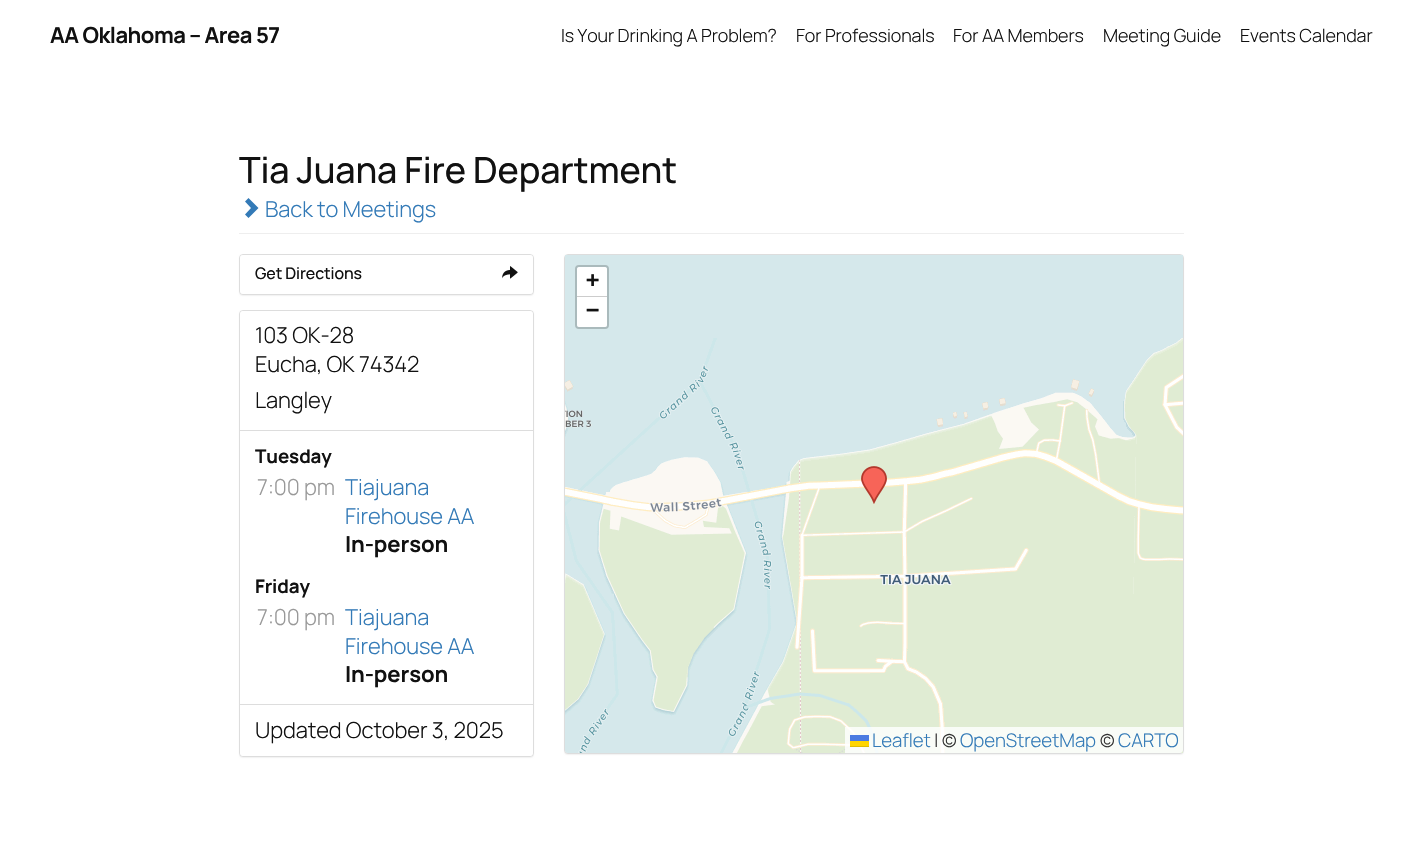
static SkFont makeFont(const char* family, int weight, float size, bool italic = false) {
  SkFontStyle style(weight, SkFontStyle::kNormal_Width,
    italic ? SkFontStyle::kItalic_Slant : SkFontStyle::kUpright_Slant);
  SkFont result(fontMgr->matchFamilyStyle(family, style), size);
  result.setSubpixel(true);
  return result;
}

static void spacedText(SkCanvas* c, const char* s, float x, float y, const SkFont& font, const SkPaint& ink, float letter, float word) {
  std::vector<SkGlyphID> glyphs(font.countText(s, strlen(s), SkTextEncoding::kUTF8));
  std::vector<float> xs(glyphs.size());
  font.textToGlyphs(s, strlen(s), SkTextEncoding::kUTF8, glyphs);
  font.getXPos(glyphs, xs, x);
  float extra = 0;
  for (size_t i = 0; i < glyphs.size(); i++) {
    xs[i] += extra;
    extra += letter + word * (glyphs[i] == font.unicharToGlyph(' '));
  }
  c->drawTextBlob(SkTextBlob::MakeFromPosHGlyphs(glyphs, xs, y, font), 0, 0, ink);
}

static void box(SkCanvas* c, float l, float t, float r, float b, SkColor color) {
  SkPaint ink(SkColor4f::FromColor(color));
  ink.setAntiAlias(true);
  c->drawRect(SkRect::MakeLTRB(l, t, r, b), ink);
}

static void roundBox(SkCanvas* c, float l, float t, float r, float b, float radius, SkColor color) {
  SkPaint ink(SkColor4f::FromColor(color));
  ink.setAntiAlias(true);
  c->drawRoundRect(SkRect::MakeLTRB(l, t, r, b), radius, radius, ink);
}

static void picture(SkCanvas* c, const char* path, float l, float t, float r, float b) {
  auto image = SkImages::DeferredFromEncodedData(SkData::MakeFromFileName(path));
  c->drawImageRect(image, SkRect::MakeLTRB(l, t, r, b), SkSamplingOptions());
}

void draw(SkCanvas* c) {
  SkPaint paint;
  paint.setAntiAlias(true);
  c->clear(0xffffffff);
  SkFont face1 = makeFont("Manrope", 700, 22);
  paint.setColor(0xff111111);
  spacedText(c, "AA Oklahoma – Area 57", 50, 43, face1, paint, -0.5f, 0);
  SkFont face2 = makeFont("Manrope", 300, 18);
  spacedText(c, "Is Your Drinking A Problem?", 561, 42, face2, paint, -0.1f, 0);
  spacedText(c, "For Professionals", 796, 42, face2, paint, -0.1f, 0);
  spacedText(c, "For AA Members", 953, 42, face2, paint, -0.1f, 0);
  spacedText(c, "Meeting Guide", 1103, 42, face2, paint, -0.1f, 0);
  spacedText(c, "Events Calendar", 1240, 42, face2, paint, -0.1f, 0);
  box(c, 239, 233, 1184, 234, 0xffeeeeee);
  SkFont face3 = makeFont("Manrope", 500, 36);
  spacedText(c, "Tia Juana Fire Department", 239, 183, face3, paint, -0.1f, 0);
  paint.setColor(0xff337ab7);
  c->drawPath(SkPathBuilder().moveTo(258.5f, 208).lineTo(248.5f, 218).lineTo(245, 214.5f).lineTo(251, 208).lineTo(245, 201.5f).lineTo(248.5f, 198).close().detach(), paint);
  SkFont face4 = makeFont("Manrope", 300, 22);
  spacedText(c, "Back to Meetings", 265, 217, face4, paint, -0.1f, 0);
  paint.setColor(0x0d000000);
  paint.setMaskFilter(SkMaskFilter::MakeBlur(kNormal_SkBlurStyle, 0.5f));
  c->drawRoundRect(SkRect::MakeLTRB(239, 255, 534, 296), 4, 4, paint);
  paint.setMaskFilter(nullptr);
  paint.setStyle(SkPaint::kStroke_Style);
  paint.setStrokeWidth(1);
  paint.setColor(0xffdddddd);
  c->drawRoundRect(SkRect::MakeLTRB(239.5f, 254.5f, 533.5f, 294.5f), 3.5f, 3.5f, paint);
  roundBox(c, 240, 255, 533, 294, 3, 0xffffffff);
  SkFont face5 = makeFont("Manrope", 500, 16);
  paint.setStyle(SkPaint::kFill_Style);
  paint.setColor(0xff111111);
  spacedText(c, "Get Directions", 255, 279, face5, paint, -0.1f, 0);
  picture(c, "img_01.png", 502, 266, 518, 279);
  paint.setColor(0x0d000000);
  paint.setMaskFilter(SkMaskFilter::MakeBlur(kNormal_SkBlurStyle, 0.5f));
  c->drawRoundRect(SkRect::MakeLTRB(239, 311, 534, 758), 4, 4, paint);
  paint.setMaskFilter(nullptr);
  paint.setColor(0xffffffff);
  c->drawRoundRect(SkRect::MakeLTRB(239.5f, 310.5f, 533.5f, 756.5f), 3.5f, 3.5f, paint);
  paint.setStyle(SkPaint::kStroke_Style);
  paint.setColor(0xffdddddd);
  c->drawRoundRect(SkRect::MakeLTRB(239.5f, 310.5f, 533.5f, 756.5f), 3.5f, 3.5f, paint);
  paint.setStyle(SkPaint::kFill_Style);
  paint.setColor(0xffffffff);
  c->drawPath(SkPathBuilder().moveTo(243, 311).lineTo(530, 311).cubicTo(531.5f, 311, 533, 312.5f, 533, 314).lineTo(533, 431).lineTo(240, 431).lineTo(240, 314).cubicTo(240, 312.5f, 241.5f, 311, 243, 311).close().detach(), paint);
  box(c, 240, 430, 533, 431, 0xffdddddd);
  paint.setColor(0xff111111);
  spacedText(c, "103 OK-28", 255, 343, face4, paint, -0.1f, 0);
  spacedText(c, "Eucha, OK 74342", 255, 372, face4, paint, -0.1f, 0);
  spacedText(c, "Langley", 255, 408, face4, paint, -0.1f, 0);
  SkFont face6 = makeFont("Manrope", 700, 18.75f);
  spacedText(c, "Tuesday", 255, 463, face6, paint, -0.1f, 0);
  paint.setColor(0xff999999);
  spacedText(c, "7:00 pm", 257, 495, face4, paint, -0.1f, 0);
  paint.setColor(0xff337ab7);
  spacedText(c, "Tiajuana", 345, 495, face4, paint, -0.1f, 0);
  spacedText(c, "Firehouse AA", 345, 524, face4, paint, -0.1f, 0);
  paint.setColor(0xff111111);
  spacedText(c, "In-person", 345, 552, face1, paint, -0.1f, 0);
  spacedText(c, "Friday", 255, 593, face6, paint, -0.1f, 0);
  paint.setColor(0xff999999);
  spacedText(c, "7:00 pm", 257, 625, face4, paint, -0.1f, 0);
  paint.setColor(0xff337ab7);
  spacedText(c, "Tiajuana", 345, 625, face4, paint, -0.1f, 0);
  spacedText(c, "Firehouse AA", 345, 654, face4, paint, -0.1f, 0);
  paint.setColor(0xff111111);
  spacedText(c, "In-person", 345, 682, face1, paint, -0.1f, 0);
  paint.setColor(0xffffffff);
  c->drawPath(SkPathBuilder().moveTo(240, 704).lineTo(533, 704).lineTo(533, 753).cubicTo(533, 754.5f, 531.5f, 756, 530, 756).lineTo(243, 756).cubicTo(241.5f, 756, 240, 754.5f, 240, 753).close().detach(), paint);
  box(c, 240, 704, 533, 705, 0xffdddddd);
  paint.setColor(0xff111111);
  spacedText(c, "Updated October 3, 2025", 255, 738, face4, paint, -0.1f, 0);
  paint.setColor(0x0d000000);
  paint.setMaskFilter(SkMaskFilter::MakeBlur(kNormal_SkBlurStyle, 0.5f));
  c->drawRoundRect(SkRect::MakeLTRB(564, 255, 1184, 755), 4, 4, paint);
  paint.setMaskFilter(nullptr);
  paint.setStyle(SkPaint::kStroke_Style);
  paint.setColor(0xffdddddd);
  c->drawRoundRect(SkRect::MakeLTRB(564.5f, 254.5f, 1183.5f, 753.5f), 3.5f, 3.5f, paint);
  box(c, 565, 255, 1183, 338, 0xffd5e8eb);
  picture(c, "img_02.png", 565, 338, 614, 594);
  picture(c, "img_03.png", 614, 338, 870, 594);
  picture(c, "img_04.png", 870, 338, 1126, 594);
  picture(c, "img_05.png", 1126, 338, 1183, 594);
  picture(c, "img_06.png", 565, 594, 614, 753);
  picture(c, "img_07.png", 614, 594, 870, 753);
  picture(c, "img_08.png", 870, 594, 1126, 753);
  box(c, 1126, 594, 1183, 753, 0xffe0ecd3);
  picture(c, "img_09.png", 861, 466, 887, 504);
  paint.setStrokeWidth(2);
  paint.setColor(0xffaababc);
  c->drawRoundRect(SkRect::MakeLTRB(576, 266, 608, 328), 3, 3, paint);
  paint.setStyle(SkPaint::kFill_Style);
  paint.setColor(0xffffffff);
  c->drawPath(SkPathBuilder().moveTo(579, 267).lineTo(605, 267).cubicTo(606, 267, 607, 268, 607, 269).lineTo(607, 297).lineTo(577, 297).lineTo(577, 269).cubicTo(577, 268, 578, 267, 579, 267).close().detach(), paint);
  box(c, 577, 296, 607, 297, 0xffcccccc);
  SkFont face7 = makeFont("DejaVu Sans Mono", 700, 22);
  paint.setColor(0xff111111);
  spacedText(c, "+", 586, 287, face7, paint, -0.1f, 0);
  paint.setColor(0xffffffff);
  c->drawPath(SkPathBuilder().moveTo(577, 297).lineTo(607, 297).lineTo(607, 325).cubicTo(607, 326, 606, 327, 605, 327).lineTo(579, 327).cubicTo(578, 327, 577, 326, 577, 325).close().detach(), paint);
  paint.setColor(0xff111111);
  spacedText(c, "−", 586, 317, face7, paint, -0.1f, 0);
  paint.setColor(0xccffffff);
  c->drawPath(SkPathBuilder().moveTo(845, 727).lineTo(1183, 727).lineTo(1183, 750).cubicTo(1183, 751.5f, 1181.5f, 753, 1180, 753).lineTo(845, 753).close().detach(), paint);
  SkFont face8 = makeFont("Manrope", 300, 18.75f);
  paint.setColor(0xff337ab7);
  spacedText(c, "Leaflet", 872, 747, face8, paint, -0.1f, 0);
  box(c, 850, 735, 869, 741, 0xff4c7be1);
  box(c, 850, 741, 869, 746, 0xffffd500);
  box(c, 850, 746, 869, 747, 0xffe0bc00);
  paint.setColor(0xff333333);
  spacedText(c, "| ©", 934, 747, face8, paint, -0.1f, 0);
  paint.setColor(0xff337ab7);
  spacedText(c, "OpenStreetMap", 960, 747, face8, paint, -0.1f, 0);
  paint.setColor(0xff333333);
  spacedText(c, "©", 1100, 747, face8, paint, -0.1f, 0);
  paint.setColor(0xff337ab7);
  spacedText(c, "CARTO", 1118, 747, face8, paint, -0.1f, 0);
}
